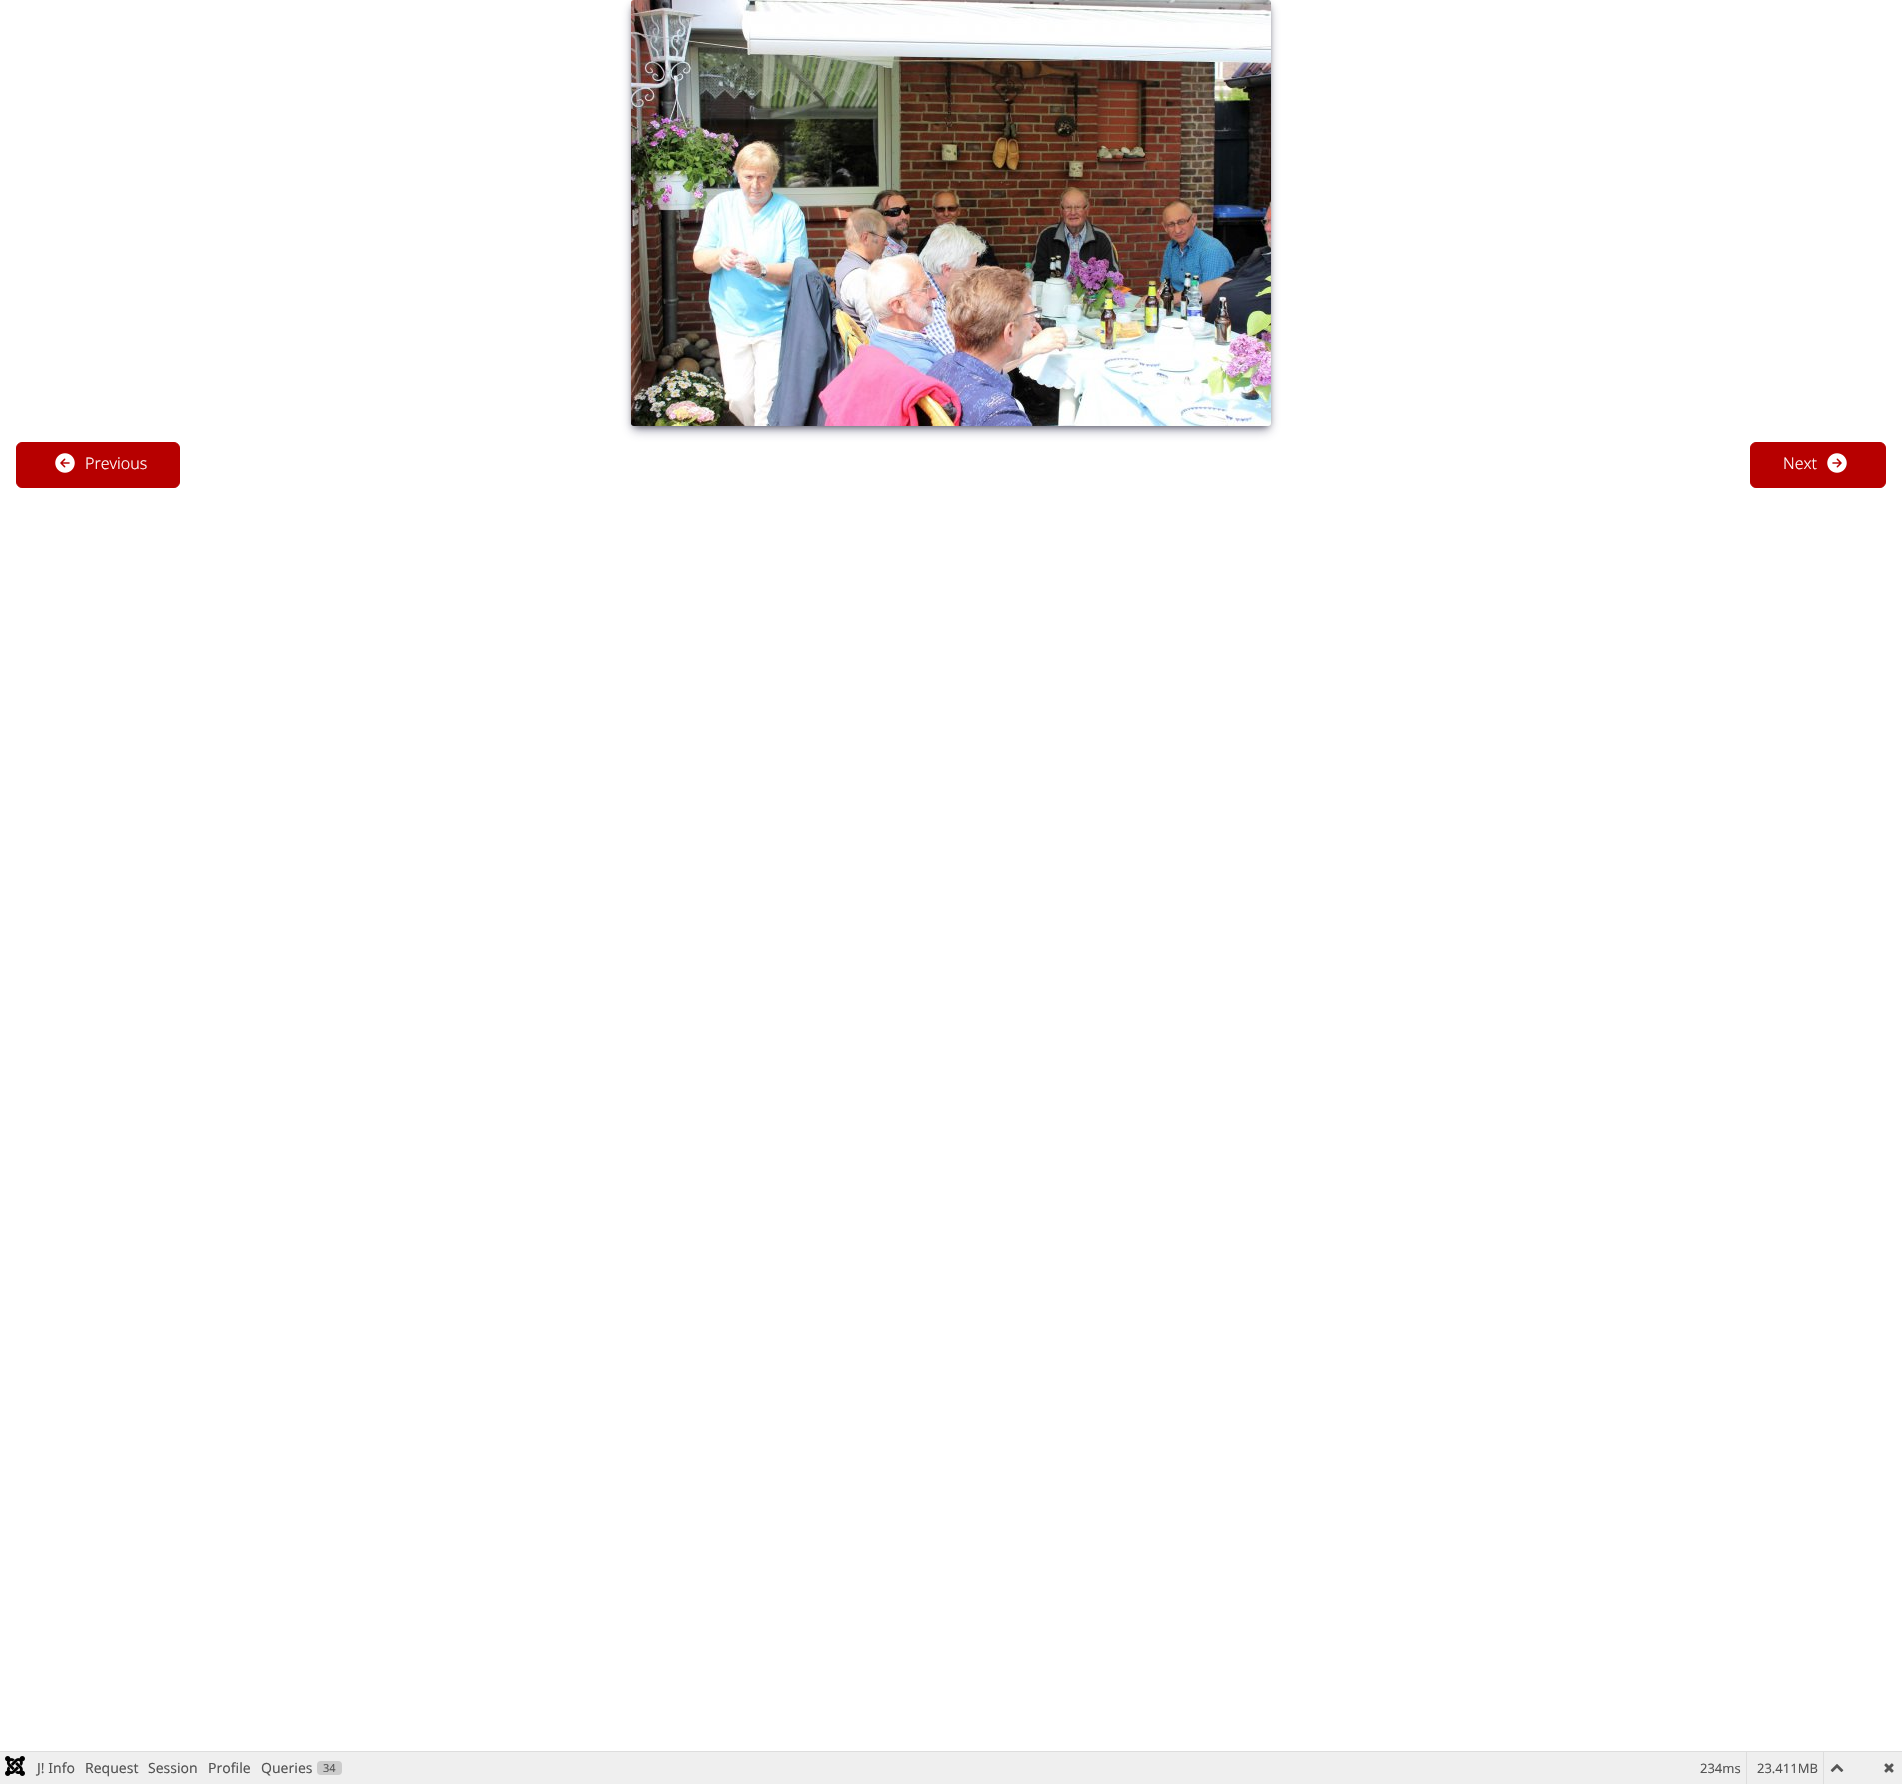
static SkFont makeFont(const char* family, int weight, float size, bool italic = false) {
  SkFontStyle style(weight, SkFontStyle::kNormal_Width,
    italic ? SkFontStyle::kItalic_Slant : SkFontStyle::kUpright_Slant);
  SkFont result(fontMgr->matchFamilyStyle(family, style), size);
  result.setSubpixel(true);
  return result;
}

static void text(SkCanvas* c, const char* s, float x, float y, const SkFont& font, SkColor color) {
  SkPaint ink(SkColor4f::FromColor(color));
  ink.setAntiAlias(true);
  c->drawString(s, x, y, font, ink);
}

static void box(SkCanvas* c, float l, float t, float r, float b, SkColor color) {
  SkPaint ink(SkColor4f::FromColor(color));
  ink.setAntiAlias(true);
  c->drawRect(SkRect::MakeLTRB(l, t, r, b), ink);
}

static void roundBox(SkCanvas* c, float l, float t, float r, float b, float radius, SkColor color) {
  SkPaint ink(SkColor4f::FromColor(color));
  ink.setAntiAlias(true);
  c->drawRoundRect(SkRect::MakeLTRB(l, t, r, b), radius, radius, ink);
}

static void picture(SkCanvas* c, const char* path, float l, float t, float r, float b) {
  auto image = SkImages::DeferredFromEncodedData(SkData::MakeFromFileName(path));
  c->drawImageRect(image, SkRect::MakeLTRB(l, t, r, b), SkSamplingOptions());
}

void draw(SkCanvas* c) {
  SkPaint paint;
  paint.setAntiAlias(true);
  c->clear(0xffffffff);
  paint.setColor(0xb3000000);
  paint.setMaskFilter(SkMaskFilter::MakeBlur(kNormal_SkBlurStyle, 3.5f));
  c->drawRect(SkRect::MakeLTRB(634, 6, 1268, 426), paint);
  paint.setMaskFilter(nullptr);
  paint.setColor(0x6632325d);
  paint.setMaskFilter(SkMaskFilter::MakeBlur(kNormal_SkBlurStyle, 6));
  c->drawRoundRect(SkRect::MakeLTRB(633, 8, 1269, 430), 1, 1, paint);
  paint.setMaskFilter(nullptr);
  picture(c, "img_01.png", 631, 0, 1271, 426);
  paint.setColor(0xffb70000);
  c->drawRoundRect(SkRect::MakeLTRB(16.5f, 442.5f, 179.5f, 487.5f), 5.5f, 5.5f, paint);
  paint.setStyle(SkPaint::kStroke_Style);
  paint.setStrokeWidth(1);
  c->drawRoundRect(SkRect::MakeLTRB(16.5f, 442.5f, 179.5f, 487.5f), 5.5f, 5.5f, paint);
  picture(c, "img_02.png", 55, 453, 75, 473);
  SkFont face1 = makeFont("Noto Sans", 300, 16);
  text(c, "Previous", 85, 469, face1, 0xffffffff);
  paint.setStyle(SkPaint::kFill_Style);
  c->drawRoundRect(SkRect::MakeLTRB(1750.5f, 442.5f, 1885.5f, 487.5f), 5.5f, 5.5f, paint);
  paint.setStyle(SkPaint::kStroke_Style);
  c->drawRoundRect(SkRect::MakeLTRB(1750.5f, 442.5f, 1885.5f, 487.5f), 5.5f, 5.5f, paint);
  text(c, "Next", 1783, 469, face1, 0xffffffff);
  picture(c, "img_03.png", 1827, 453, 1847, 473);
  box(c, 0, 1751, 1902, 1752, 0xffdddddd);
  box(c, 0, 1752, 1902, 1784, 0xffefefef);
  picture(c, "img_04.png", 5, 1756, 25, 1776);
  SkFont face2 = makeFont("Noto Sans", 400, 14);
  text(c, "J! Info", 37, 1773, face2, 0xff555555);
  text(c, "Request", 85, 1773, face2, 0xff555555);
  text(c, "Session", 148, 1773, face2, 0xff555555);
  text(c, "Profile", 208, 1773, face2, 0xff555555);
  text(c, "Queries", 261, 1773, face2, 0xff555555);
  roundBox(c, 317, 1761, 342, 1775, 4, 0xffcccccc);
  SkFont face3 = makeFont("Noto Sans", 400, 11);
  text(c, "34", 323, 1772, face3, 0xff555555);
  box(c, 1746, 1752, 1747, 1784, 0xffdddddd);
  SkFont face4 = makeFont("Noto Sans", 400, 13);
  text(c, "234ms", 1700, 1773, face4, 0xff555555);
  box(c, 1823, 1752, 1824, 1784, 0xffdddddd);
  text(c, "23.411MB", 1757, 1773, face4, 0xff555555);
  picture(c, "img_05.png", 1830, 1764, 1844, 1772);
  picture(c, "img_06.png", 1884, 1763, 1894, 1773);
}
